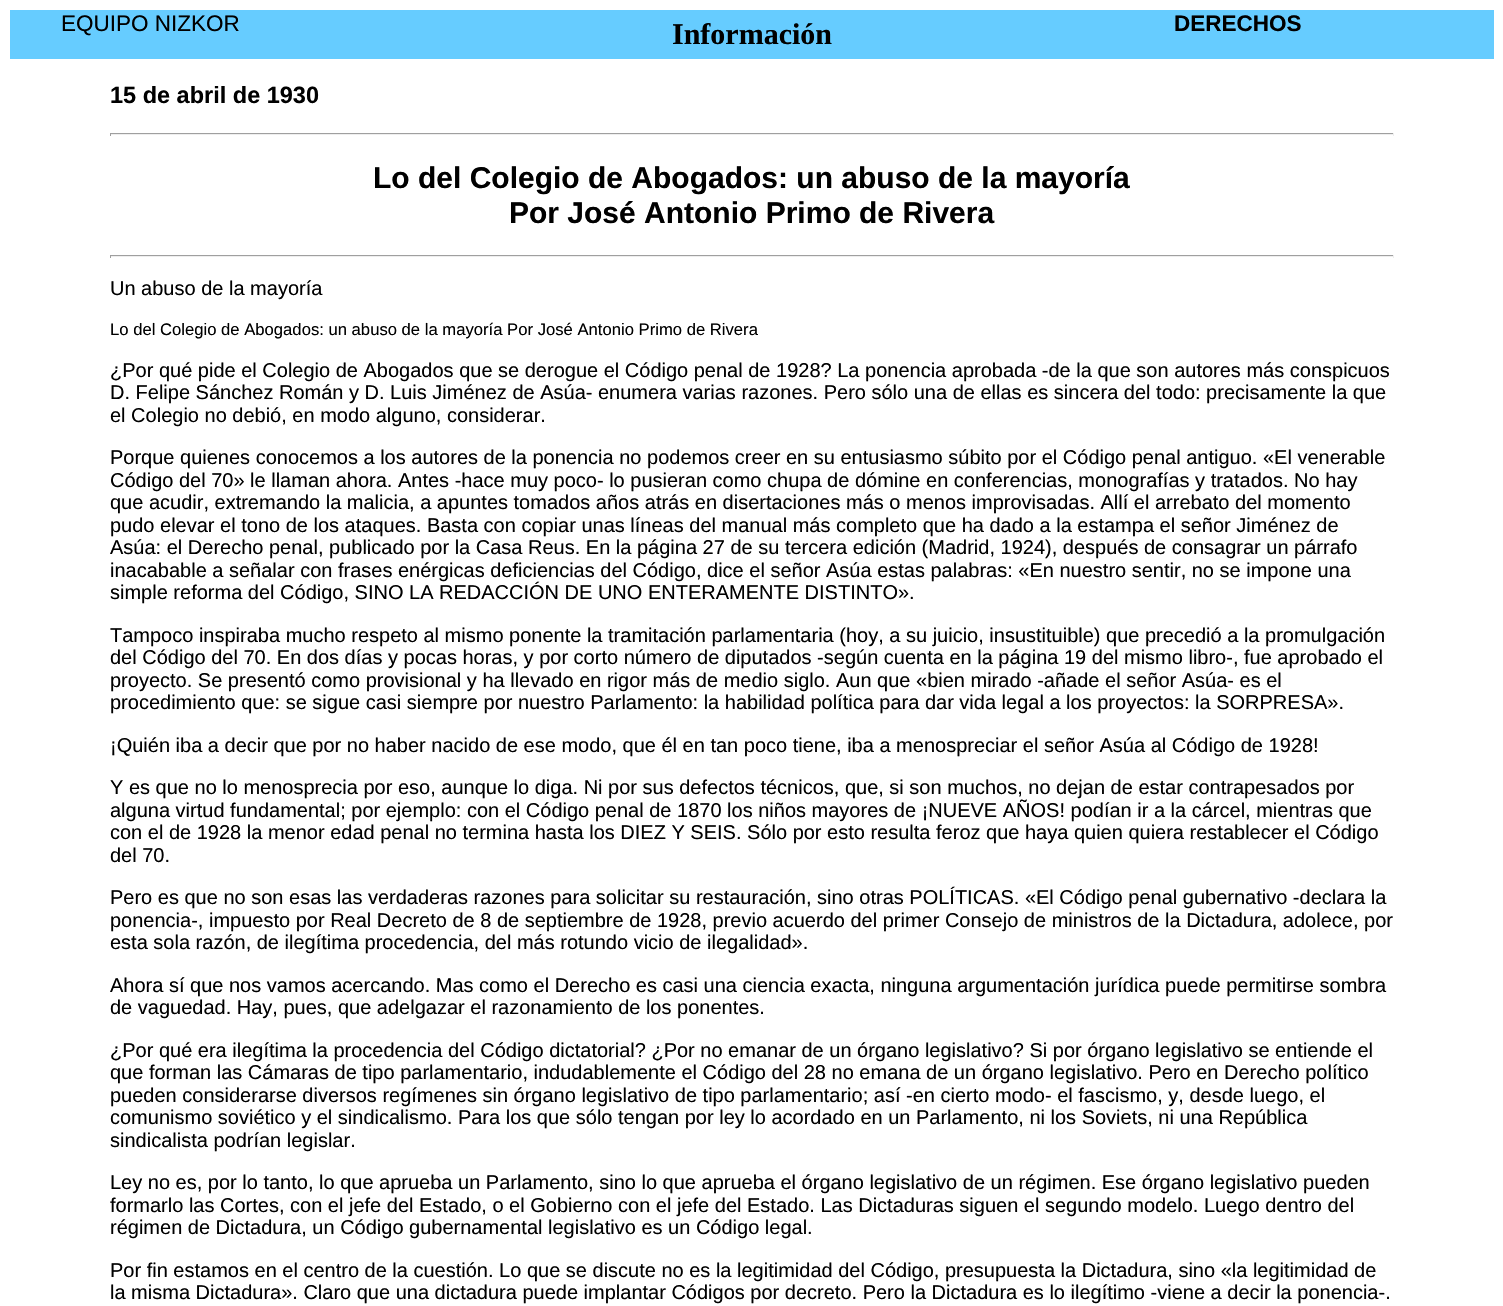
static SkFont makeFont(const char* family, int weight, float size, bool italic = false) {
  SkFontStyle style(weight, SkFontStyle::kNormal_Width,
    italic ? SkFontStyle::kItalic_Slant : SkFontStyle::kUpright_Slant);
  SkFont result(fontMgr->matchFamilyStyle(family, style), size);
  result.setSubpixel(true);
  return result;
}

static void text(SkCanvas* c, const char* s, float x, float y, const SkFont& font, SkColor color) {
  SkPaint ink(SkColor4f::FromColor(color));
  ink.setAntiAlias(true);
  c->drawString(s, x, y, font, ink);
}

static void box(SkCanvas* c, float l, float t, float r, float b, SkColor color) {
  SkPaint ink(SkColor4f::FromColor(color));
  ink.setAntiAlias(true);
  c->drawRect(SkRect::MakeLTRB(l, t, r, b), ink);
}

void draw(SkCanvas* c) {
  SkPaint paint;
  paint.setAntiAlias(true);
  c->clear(0xffffffff);
  box(c, 10, 10, 1494, 59, 0xff66ccff);
  SkFont face1 = makeFont("Liberation Sans", 400, 22.5f);
  text(c, "EQUIPO NIZKOR", 61, 31, face1, 0xff000000);
  SkFont face2 = makeFont("Liberation Serif", 700, 30);
  text(c, "Información", 672, 44, face2, 0xff000000);
  SkFont face3 = makeFont("Liberation Sans", 700, 22.5f);
  text(c, "DERECHOS", 1174, 31, face3, 0xff000000);
  SkFont face4 = makeFont("Liberation Sans", 700, 23.5f);
  text(c, "15 de abril de 1930", 110, 103, face4, 0xff000000);
  box(c, 110, 133, 1394, 134, 0xff9f9f9f);
  box(c, 1393, 133, 1394, 136, 0xffeeeeee);
  box(c, 110, 134, 1394, 135, 0xffeeeeee);
  box(c, 110, 133, 111, 136, 0xff9f9f9f);
  SkFont face5 = makeFont("Liberation Sans", 700, 30);
  text(c, "Lo del Colegio de Abogados: un abuso de la mayoría", 373, 188, face5, 0xff000000);
  text(c, "Por José Antonio Primo de Rivera", 509, 223, face5, 0xff000000);
  box(c, 110, 255, 1394, 256, 0xff9f9f9f);
  box(c, 1393, 255, 1394, 258, 0xffeeeeee);
  box(c, 110, 256, 1394, 257, 0xffeeeeee);
  box(c, 110, 255, 111, 258, 0xff9f9f9f);
  SkFont face6 = makeFont("Liberation Sans", 400, 20);
  text(c, "Un abuso de la mayoría", 110, 295, face6, 0xff000000);
  SkFont face7 = makeFont("Liberation Sans", 400, 16.65f);
  text(c, "Lo del Colegio de Abogados: un abuso de la mayoría Por José Antonio Primo de Rivera", 110, 335, face7, 0xff000000);
  text(c, "¿Por qué pide el Colegio de Abogados que se derogue el Código penal de 1928? La ponencia aprobada -de la que son autores más conspicuos", 110, 377, face6, 0xff000000);
  text(c, "D. Felipe Sánchez Román y D. Luis Jiménez de Asúa- enumera varias razones. Pero sólo una de ellas es sincera del todo: precisamente la que", 110, 399, face6, 0xff000000);
  text(c, "el Colegio no debió, en modo alguno, considerar.", 110, 422, face6, 0xff000000);
  text(c, "Porque quienes conocemos a los autores de la ponencia no podemos creer en su entusiasmo súbito por el Código penal antiguo. «El venerable", 110, 464, face6, 0xff000000);
  text(c, "Código del 70» le llaman ahora. Antes -hace muy poco- lo pusieran como chupa de dómine en conferencias, monografías y tratados. No hay", 110, 487, face6, 0xff000000);
  text(c, "que acudir, extremando la malicia, a apuntes tomados años atrás en disertaciones más o menos improvisadas. Allí el arrebato del momento", 110, 509, face6, 0xff000000);
  text(c, "pudo elevar el tono de los ataques. Basta con copiar unas líneas del manual más completo que ha dado a la estampa el señor Jiménez de", 110, 532, face6, 0xff000000);
  text(c, "Asúa: el Derecho penal, publicado por la Casa Reus. En la página 27 de su tercera edición (Madrid, 1924), después de consagrar un párrafo", 110, 554, face6, 0xff000000);
  text(c, "inacabable a señalar con frases enérgicas deficiencias del Código, dice el señor Asúa estas palabras: «En nuestro sentir, no se impone una", 110, 577, face6, 0xff000000);
  text(c, "simple reforma del Código, SINO LA REDACCIÓN DE UNO ENTERAMENTE DISTINTO».", 110, 599, face6, 0xff000000);
  text(c, "Tampoco inspiraba mucho respeto al mismo ponente la tramitación parlamentaria (hoy, a su juicio, insustituible) que precedió a la promulgación", 110, 642, face6, 0xff000000);
  text(c, "del Código del 70. En dos días y pocas horas, y por corto número de diputados -según cuenta en la página 19 del mismo libro-, fue aprobado el", 110, 664, face6, 0xff000000);
  text(c, "proyecto. Se presentó como provisional y ha llevado en rigor más de medio siglo. Aun que «bien mirado -añade el señor Asúa- es el", 110, 687, face6, 0xff000000);
  text(c, "procedimiento que: se sigue casi siempre por nuestro Parlamento: la habilidad política para dar vida legal a los proyectos: la SORPRESA».", 110, 709, face6, 0xff000000);
  text(c, "¡Quién iba a decir que por no haber nacido de ese modo, que él en tan poco tiene, iba a menospreciar el señor Asúa al Código de 1928!", 110, 752, face6, 0xff000000);
  text(c, "Y es que no lo menosprecia por eso, aunque lo diga. Ni por sus defectos técnicos, que, si son muchos, no dejan de estar contrapesados por", 110, 794, face6, 0xff000000);
  text(c, "alguna virtud fundamental; por ejemplo: con el Código penal de 1870 los niños mayores de ¡NUEVE AÑOS! podían ir a la cárcel, mientras que", 110, 817, face6, 0xff000000);
  text(c, "con el de 1928 la menor edad penal no termina hasta los DIEZ Y SEIS. Sólo por esto resulta feroz que haya quien quiera restablecer el Código", 110, 839, face6, 0xff000000);
  text(c, "del 70.", 110, 862, face6, 0xff000000);
  text(c, "Pero es que no son esas las verdaderas razones para solicitar su restauración, sino otras POLÍTICAS. «El Código penal gubernativo -declara la", 110, 904, face6, 0xff000000);
  text(c, "ponencia-, impuesto por Real Decreto de 8 de septiembre de 1928, previo acuerdo del primer Consejo de ministros de la Dictadura, adolece, por", 110, 927, face6, 0xff000000);
  text(c, "esta sola razón, de ilegítima procedencia, del más rotundo vicio de ilegalidad».", 110, 949, face6, 0xff000000);
  text(c, "Ahora sí que nos vamos acercando. Mas como el Derecho es casi una ciencia exacta, ninguna argumentación jurídica puede permitirse sombra", 110, 992, face6, 0xff000000);
  text(c, "de vaguedad. Hay, pues, que adelgazar el razonamiento de los ponentes.", 110, 1014, face6, 0xff000000);
  text(c, "¿Por qué era ilegítima la procedencia del Código dictatorial? ¿Por no emanar de un órgano legislativo? Si por órgano legislativo se entiende el", 110, 1057, face6, 0xff000000);
  text(c, "que forman las Cámaras de tipo parlamentario, indudablemente el Código del 28 no emana de un órgano legislativo. Pero en Derecho político", 110, 1079, face6, 0xff000000);
  text(c, "pueden considerarse diversos regímenes sin órgano legislativo de tipo parlamentario; así -en cierto modo- el fascismo, y, desde luego, el", 110, 1102, face6, 0xff000000);
  text(c, "comunismo soviético y el sindicalismo. Para los que sólo tengan por ley lo acordado en un Parlamento, ni los Soviets, ni una República", 110, 1124, face6, 0xff000000);
  text(c, "sindicalista podrían legislar.", 110, 1147, face6, 0xff000000);
  text(c, "Ley no es, por lo tanto, lo que aprueba un Parlamento, sino lo que aprueba el órgano legislativo de un régimen. Ese órgano legislativo pueden", 110, 1189, face6, 0xff000000);
  text(c, "formarlo las Cortes, con el jefe del Estado, o el Gobierno con el jefe del Estado. Las Dictaduras siguen el segundo modelo. Luego dentro del", 110, 1212, face6, 0xff000000);
  text(c, "régimen de Dictadura, un Código gubernamental legislativo es un Código legal.", 110, 1234, face6, 0xff000000);
  text(c, "Por fin estamos en el centro de la cuestión. Lo que se discute no es la legitimidad del Código, presupuesta la Dictadura, sino «la legitimidad de", 110, 1277, face6, 0xff000000);
  text(c, "la misma Dictadura». Claro que una dictadura puede implantar Códigos por decreto. Pero la Dictadura es lo ilegítimo -viene a decir la ponencia-.", 110, 1299, face6, 0xff000000);
}
